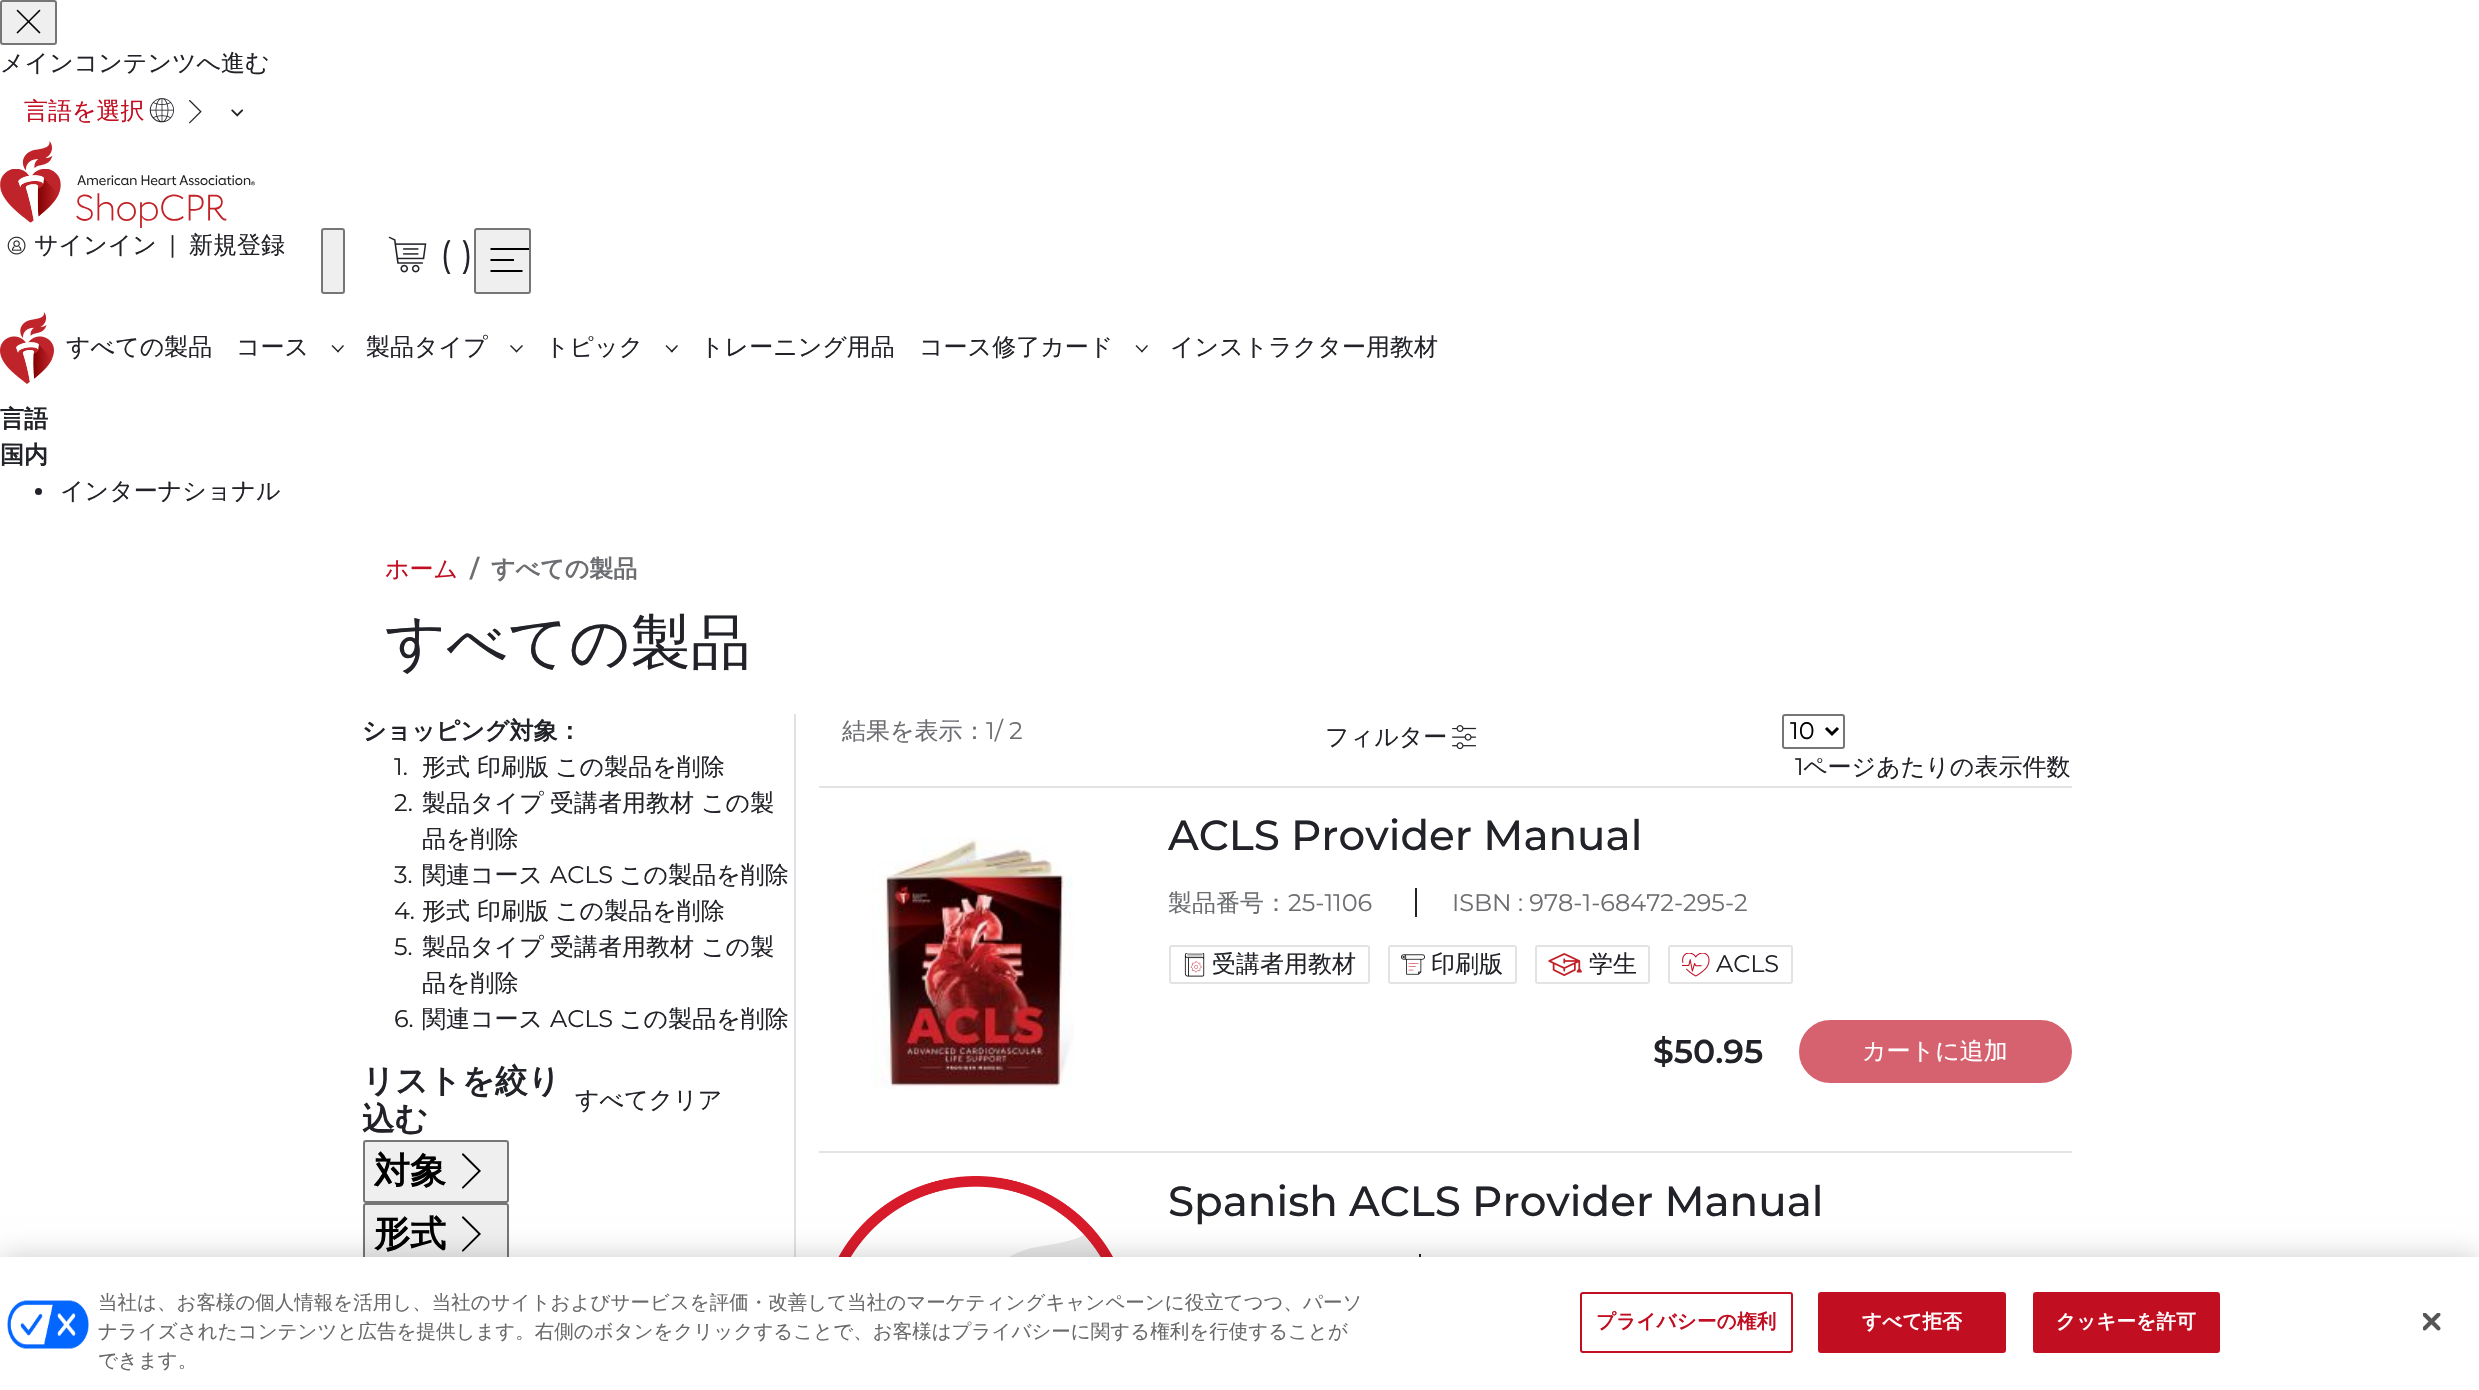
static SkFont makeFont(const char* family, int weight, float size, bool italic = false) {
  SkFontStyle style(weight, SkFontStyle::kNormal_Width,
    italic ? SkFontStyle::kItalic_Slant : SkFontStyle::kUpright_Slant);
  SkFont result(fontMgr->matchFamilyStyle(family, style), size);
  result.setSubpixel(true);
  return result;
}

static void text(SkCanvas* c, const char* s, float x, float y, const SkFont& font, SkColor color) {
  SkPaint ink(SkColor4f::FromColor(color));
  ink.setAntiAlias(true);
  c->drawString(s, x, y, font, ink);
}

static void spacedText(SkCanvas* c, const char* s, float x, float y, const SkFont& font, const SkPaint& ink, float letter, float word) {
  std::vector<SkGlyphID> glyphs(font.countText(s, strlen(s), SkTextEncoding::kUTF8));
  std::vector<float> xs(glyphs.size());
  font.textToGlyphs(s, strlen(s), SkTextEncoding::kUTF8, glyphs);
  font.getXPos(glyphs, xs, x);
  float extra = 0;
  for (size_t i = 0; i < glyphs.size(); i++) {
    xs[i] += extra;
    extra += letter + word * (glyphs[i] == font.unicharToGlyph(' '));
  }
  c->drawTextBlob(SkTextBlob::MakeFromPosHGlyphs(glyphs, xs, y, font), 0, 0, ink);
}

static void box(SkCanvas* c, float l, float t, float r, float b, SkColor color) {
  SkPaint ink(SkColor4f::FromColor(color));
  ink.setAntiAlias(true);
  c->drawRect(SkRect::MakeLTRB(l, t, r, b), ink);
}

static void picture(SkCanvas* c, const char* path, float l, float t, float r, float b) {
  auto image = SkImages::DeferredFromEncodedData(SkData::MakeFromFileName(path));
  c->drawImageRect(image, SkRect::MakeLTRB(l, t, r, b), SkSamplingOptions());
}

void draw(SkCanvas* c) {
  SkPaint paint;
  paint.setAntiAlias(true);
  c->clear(0xffffffff);
  paint.setColor(0xffefefef);
  c->drawRoundRect(SkRect::MakeLTRB(1, 1, 56, 44), 2, 2, paint);
  paint.setStyle(SkPaint::kStroke_Style);
  paint.setStrokeWidth(2);
  paint.setColor(0xff767676);
  c->drawRoundRect(SkRect::MakeLTRB(1, 1, 56, 44), 2, 2, paint);
  picture(c, "img_01.png", 16, 9, 41, 34);
  SkFont face1 = makeFont("WenQuanYi Zen Hei", 500, 24);
  text(c, "メインコンテンツへ進む", 0, 71, face1, 0xff222328);
  text(c, "言語を選択", 24, 119, face1, 0xffc10e21);
  picture(c, "img_02.png", 149, 98, 174, 123);
  picture(c, "img_03.png", 189, 100, 202, 124);
  picture(c, "img_04.png", 231, 109, 243, 117);
  picture(c, "img_05.png", 0, 141, 255, 228);
  picture(c, "img_06.png", 7, 236, 26, 255);
  text(c, "サインイン", 34, 253, face1, 0xff222328);
  SkFont face2 = makeFont("Montserrat", 400, 24);
  text(c, "|", 169, 253, face2, 0xff222328);
  text(c, "新規登録", 189, 253, face1, 0xff222328);
  paint.setStyle(SkPaint::kFill_Style);
  paint.setColor(0xffefefef);
  c->drawRoundRect(SkRect::MakeLTRB(322, 229, 344, 293), 2, 2, paint);
  paint.setStyle(SkPaint::kStroke_Style);
  paint.setColor(0xff767676);
  c->drawRoundRect(SkRect::MakeLTRB(322, 229, 344, 293), 2, 2, paint);
  picture(c, "img_07.png", 388, 236, 427, 273);
  SkFont face3 = makeFont("Montserrat", 400, 36);
  text(c, "( )", 440, 267, face3, 0xff222328);
  paint.setStyle(SkPaint::kFill_Style);
  paint.setColor(0xffefefef);
  c->drawRoundRect(SkRect::MakeLTRB(475, 229, 530, 293), 2, 2, paint);
  paint.setStyle(SkPaint::kStroke_Style);
  paint.setColor(0xff767676);
  c->drawRoundRect(SkRect::MakeLTRB(475, 229, 530, 293), 2, 2, paint);
  paint.setStyle(SkPaint::kFill_Style);
  paint.setColor(0xff000000);
  c->drawPath(SkPathBuilder().moveTo(529, 248).lineTo(529, 250).lineTo(490.5f, 250).lineTo(490.5f, 248).close().moveTo(514, 259).lineTo(490.5f, 259).lineTo(490.5f, 261).lineTo(514, 261).close().moveTo(490.5f, 272).lineTo(522.5f, 272).lineTo(522.5f, 270).lineTo(490.5f, 270).close().detach(), paint);
  picture(c, "img_08.png", 0, 312, 54, 384);
  text(c, "すべての製品", 66, 355, face1, 0xff222328);
  text(c, "コース", 236, 355, face1, 0xff222328);
  paint.setColor(0xff222328);
  c->drawPath(SkPathBuilder().moveTo(344, 346).lineTo(338, 352.5f).lineTo(337, 351.5f).lineTo(343, 345).close().detach(), paint);
  c->drawPath(SkPathBuilder().moveTo(339, 351.5f).lineTo(338, 352.5f).lineTo(331.5f, 346).lineTo(332.5f, 345).close().detach(), paint);
  text(c, "製品タイプ", 366, 355, face1, 0xff222328);
  c->drawPath(SkPathBuilder().moveTo(523, 346).lineTo(516.5f, 352.5f).lineTo(515.5f, 351.5f).lineTo(522, 345).close().detach(), paint);
  c->drawPath(SkPathBuilder().moveTo(517.5f, 351.5f).lineTo(516.5f, 352.5f).lineTo(510, 346).lineTo(511, 345).close().detach(), paint);
  text(c, "トピック", 545, 355, face1, 0xff222328);
  c->drawPath(SkPathBuilder().moveTo(678, 346).lineTo(672, 352.5f).lineTo(670.5f, 351.5f).lineTo(677, 345).close().detach(), paint);
  c->drawPath(SkPathBuilder().moveTo(673, 351.5f).lineTo(672, 352.5f).lineTo(665.5f, 346).lineTo(666.5f, 345).close().detach(), paint);
  text(c, "トレーニング用品", 700, 355, face1, 0xff222328);
  text(c, "コース修了カード", 919, 355, face1, 0xff222328);
  c->drawPath(SkPathBuilder().moveTo(1148, 346).lineTo(1142, 352.5f).lineTo(1141, 351.5f).lineTo(1147, 345).close().detach(), paint);
  c->drawPath(SkPathBuilder().moveTo(1143, 351.5f).lineTo(1142, 352.5f).lineTo(1135.5f, 346).lineTo(1136.5f, 345).close().detach(), paint);
  text(c, "インストラクター用教材", 1170, 355, face1, 0xff222328);
  SkFont face4 = makeFont("WenQuanYi Zen Hei", 700, 24);
  text(c, "言語", 0, 427, face4, 0xff222328);
  text(c, "国内", 0, 463, face4, 0xff222328);
  c->drawCircle(38.5f, 491.5f, 3.5f, paint);
  text(c, "インターナショナル", 60, 499, face1, 0xff222328);
  text(c, "ホーム", 385, 577, face1, 0xffc10e21);
  SkFont face5 = makeFont("Montserrat", 600, 24);
  text(c, "/", 470, 577, face5, 0xff6d6e71);
  text(c, "すべての製品", 491, 577, face4, 0xff6d6e71);
  SkFont face6 = makeFont("WenQuanYi Zen Hei", 500, 60);
  text(c, "すべての製品", 385, 663, face6, 0xff222328);
  box(c, 794, 714, 796, 1257, 0xffdee2e6);
  text(c, "ショッピング対象：", 362, 739, face4, 0xff222328);
  text(c, "1.", 394, 775, face2, 0xff222328);
  text(c, "形式", 422, 775, face1, 0xff222328);
  text(c, "印刷版", 477, 775, face1, 0xff222328);
  text(c, "この製品を削除", 555, 775, face1, 0xff222328);
  text(c, "2.", 394, 811, face2, 0xff222328);
  text(c, "製品タイプ", 422, 811, face1, 0xff222328);
  text(c, "受講者用教材", 550, 811, face1, 0xff222328);
  text(c, "この製", 701, 811, face1, 0xff222328);
  text(c, "品を削除", 422, 847, face1, 0xff222328);
  text(c, "3.", 394, 883, face2, 0xff222328);
  text(c, "関連コース", 422, 883, face1, 0xff222328);
  text(c, "ACLS", 550, 883, face2, 0xff222328);
  text(c, "この製品を削除", 619, 883, face1, 0xff222328);
  text(c, "4.", 394, 919, face2, 0xff222328);
  text(c, "形式", 422, 919, face1, 0xff222328);
  text(c, "印刷版", 477, 919, face1, 0xff222328);
  text(c, "この製品を削除", 555, 919, face1, 0xff222328);
  text(c, "5.", 394, 955, face2, 0xff222328);
  text(c, "製品タイプ", 422, 955, face1, 0xff222328);
  text(c, "受講者用教材", 550, 955, face1, 0xff222328);
  text(c, "この製", 701, 955, face1, 0xff222328);
  text(c, "品を削除", 422, 991, face1, 0xff222328);
  text(c, "6.", 394, 1027, face2, 0xff222328);
  text(c, "関連コース", 422, 1027, face1, 0xff222328);
  text(c, "ACLS", 550, 1027, face2, 0xff222328);
  text(c, "この製品を削除", 619, 1027, face1, 0xff222328);
  SkFont face7 = makeFont("WenQuanYi Zen Hei", 700, 32.5f);
  text(c, "リストを絞り", 362, 1092, face7, 0xff222328);
  text(c, "込む", 362, 1130, face7, 0xff222328);
  text(c, "すべてクリア", 575, 1108, face1, 0xff222328);
  paint.setColor(0xffefefef);
  c->drawRoundRect(SkRect::MakeLTRB(364, 1141, 508, 1202), 2, 2, paint);
  paint.setStyle(SkPaint::kStroke_Style);
  paint.setColor(0xff767676);
  c->drawRoundRect(SkRect::MakeLTRB(364, 1141, 508, 1202), 2, 2, paint);
  SkFont face8 = makeFont("WenQuanYi Zen Hei", 700, 36);
  text(c, "対象", 374, 1183, face8, 0xff000000);
  picture(c, "img_09.png", 462, 1153, 481, 1189);
  paint.setStyle(SkPaint::kFill_Style);
  paint.setColor(0xffefefef);
  c->drawRoundRect(SkRect::MakeLTRB(364, 1204, 508, 1265), 2, 2, paint);
  paint.setStyle(SkPaint::kStroke_Style);
  paint.setColor(0xff767676);
  c->drawRoundRect(SkRect::MakeLTRB(364, 1204, 508, 1265), 2, 2, paint);
  text(c, "形式", 374, 1246, face8, 0xff000000);
  picture(c, "img_09.png", 462, 1216, 481, 1252);
  text(c, "結果を表示：", 842, 739, face1, 0xff6d6e71);
  text(c, "1/ 2", 986, 739, face2, 0xff6d6e71);
  text(c, "フィルター", 1325, 745, face1, 0xff222328);
  picture(c, "img_10.png", 1452, 725, 1477, 750);
  c->drawRoundRect(SkRect::MakeLTRB(1783, 715, 1844, 748), 2, 2, paint);
  paint.setStrokeWidth(3);
  paint.setColor(0xff000000);
  c->drawPath(SkPathBuilder().moveTo(1826, 728).lineTo(1832, 734).lineTo(1838, 728).detach(), paint);
  text(c, "10", 1790, 739, face2, 0xff000000);
  text(c, "1", 1795, 775, face2, 0xff222328);
  text(c, "ページあたりの表示件数", 1803, 775, face1, 0xff222328);
  box(c, 819, 786, 2072, 788, 0xffe3e3e3);
  picture(c, "img_11.png", 871, 837, 1074, 1089);
  SkFont face9 = makeFont("Montserrat", 500, 42);
  text(c, "ACLS Provider Manual", 1168, 850, face9, 0xff222328);
  text(c, "製品番号：", 1168, 911, face1, 0xff6d6e71);
  text(c, "25-1106", 1288, 911, face2, 0xff6d6e71);
  text(c, "ISBN : 978-1-68472-295-2", 1452, 911, face2, 0xff6d6e71);
  box(c, 1415, 888, 1417, 917, 0xff222328);
  paint.setStrokeWidth(2);
  paint.setColor(0xffe3e3e3);
  c->drawRoundRect(SkRect::MakeLTRB(1170, 946, 1369, 983), 2, 2, paint);
  picture(c, "img_12.png", 1184, 953, 1205, 977);
  text(c, "受講者用教材", 1212, 972, face1, 0xff222328);
  c->drawRoundRect(SkRect::MakeLTRB(1389, 946, 1516, 983), 2, 2, paint);
  picture(c, "img_13.png", 1401, 954, 1425, 975);
  text(c, "印刷版", 1431, 972, face1, 0xff222328);
  c->drawRoundRect(SkRect::MakeLTRB(1536, 946, 1649, 983), 2, 2, paint);
  picture(c, "img_14.png", 1548, 953, 1582, 976);
  text(c, "学生", 1589, 972, face1, 0xff222328);
  c->drawRoundRect(SkRect::MakeLTRB(1669, 946, 1792, 983), 2, 2, paint);
  picture(c, "img_15.png", 1682, 953, 1710, 977);
  text(c, "ACLS", 1716, 972, face2, 0xff222328);
  SkFont face10 = makeFont("Montserrat", 600, 33);
  text(c, "$50.95", 1653, 1063, face10, 0xff222328);
  paint.setStyle(SkPaint::kFill_Style);
  paint.setColor(0xffd7626f);
  c->drawRoundRect(SkRect::MakeLTRB(1800.5f, 1021.5f, 2070.5f, 1081.5f), 30, 30, paint);
  paint.setStyle(SkPaint::kStroke_Style);
  paint.setStrokeWidth(3);
  c->drawRoundRect(SkRect::MakeLTRB(1800.5f, 1021.5f, 2070.5f, 1081.5f), 30, 30, paint);
  text(c, "カートに追加", 1862, 1059, face1, 0xffffffff);
  box(c, 819, 1151, 2072, 1153, 0xffe3e3e3);
  picture(c, "img_16.png", 838, 1176, 1113, 1257);
  text(c, "Spanish ACLS Provider Manual", 1168, 1216, face9, 0xff222328);
  box(c, 1419, 1254, 1421, 1257, 0xff222328);
  paint.setStyle(SkPaint::kFill_Style);
  paint.setColor(0x33000000);
  paint.setMaskFilter(SkMaskFilter::MakeBlur(kNormal_SkBlurStyle, 13.5f));
  c->drawRect(SkRect::MakeLTRB(0, 1257, 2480, 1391), paint);
  paint.setMaskFilter(nullptr);
  box(c, 0, 1257, 2479, 1390, 0xffffffff);
  picture(c, "img_17.png", 7, 1300, 89, 1349);
  SkFont face11 = makeFont("WenQuanYi Zen Hei", 500, 19.5f);
  text(c, "当社は、お客様の個人情報を活用し、当社のサイトおよびサービスを評価・改善して当社のマーケティングキャンペーンに役立てつつ、パーソ", 98, 1309, face11, 0xff696969);
  text(c, "ナライズされたコンテンツと広告を提供します。右側のボタンをクリックすることで、お客様はプライバシーに関する権利を行使することが", 98, 1338, face11, 0xff696969);
  text(c, "できます。", 98, 1367, face11, 0xff696969);
  paint.setStyle(SkPaint::kStroke_Style);
  paint.setStrokeWidth(2);
  paint.setColor(0xffc10e21);
  c->drawRoundRect(SkRect::MakeLTRB(1581, 1293, 1792, 1352), 2, 2, paint);
  SkFont face12 = makeFont("WenQuanYi Zen Hei", 700, 19.5f);
  paint.setStyle(SkPaint::kFill_Style);
  spacedText(c, "プライバシーの権利", 1596, 1328, face12, paint, 0.25f, 0);
  c->drawRoundRect(SkRect::MakeLTRB(1819, 1293, 2005, 1352), 2, 2, paint);
  paint.setStyle(SkPaint::kStroke_Style);
  c->drawRoundRect(SkRect::MakeLTRB(1819, 1293, 2005, 1352), 2, 2, paint);
  paint.setStyle(SkPaint::kFill_Style);
  paint.setColor(0xffffffff);
  spacedText(c, "すべて拒否", 1862, 1328, face12, paint, 0.25f, 0);
  paint.setColor(0xffc10e21);
  c->drawRoundRect(SkRect::MakeLTRB(2034, 1293, 2219, 1352), 2, 2, paint);
  paint.setStyle(SkPaint::kStroke_Style);
  c->drawRoundRect(SkRect::MakeLTRB(2034, 1293, 2219, 1352), 2, 2, paint);
  paint.setStyle(SkPaint::kFill_Style);
  paint.setColor(0xffffffff);
  spacedText(c, "クッキーを許可", 2056, 1328, face12, paint, 0.25f, 0);
  picture(c, "img_18.png", 2423, 1313, 2441, 1331);
}
